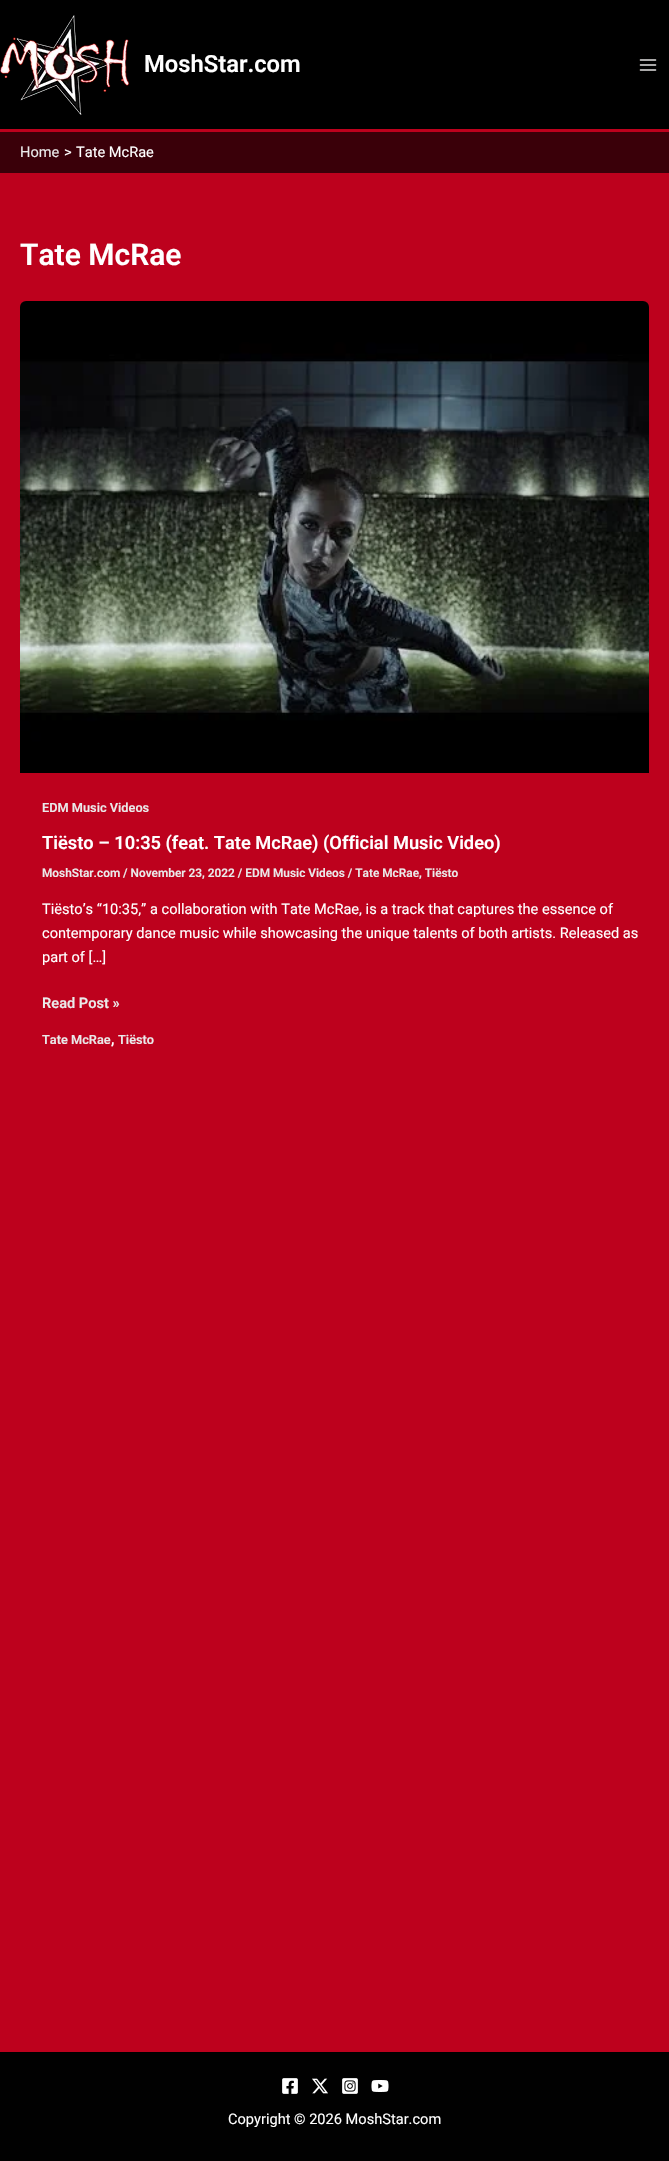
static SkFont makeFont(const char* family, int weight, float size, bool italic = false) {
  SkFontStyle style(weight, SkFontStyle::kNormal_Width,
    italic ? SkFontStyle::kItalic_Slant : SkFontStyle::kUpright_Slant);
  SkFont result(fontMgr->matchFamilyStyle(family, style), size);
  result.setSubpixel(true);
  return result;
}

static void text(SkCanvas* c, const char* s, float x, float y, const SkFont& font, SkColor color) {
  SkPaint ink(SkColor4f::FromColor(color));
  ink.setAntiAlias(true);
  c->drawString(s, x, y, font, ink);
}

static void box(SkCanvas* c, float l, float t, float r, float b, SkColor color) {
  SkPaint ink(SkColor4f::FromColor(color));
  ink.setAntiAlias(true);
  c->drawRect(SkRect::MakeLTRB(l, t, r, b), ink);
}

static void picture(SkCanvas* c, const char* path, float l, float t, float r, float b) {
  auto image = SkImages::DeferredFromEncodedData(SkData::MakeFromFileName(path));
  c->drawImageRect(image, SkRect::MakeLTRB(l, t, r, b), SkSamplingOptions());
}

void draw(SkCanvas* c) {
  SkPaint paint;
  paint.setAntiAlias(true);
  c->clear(0xffbd011d);
  box(c, 0, 0, 669, 129, 0xff000000);
  picture(c, "img_01.png", 0, 15, 129, 115);
  SkFont face1 = makeFont("Roboto", 600, 23.75f);
  text(c, "MoshStar.com", 144, 72, face1, 0xffffffff);
  picture(c, "img_02.png", 639, 59, 657, 71);
  box(c, 0, 132, 669, 173, 0xff3a0009);
  SkFont face2 = makeFont("Roboto", 400, 14.6f);
  text(c, "Home", 20, 157, face2, 0xffeaeaea);
  text(c, ">", 64, 157, face2, 0xffffffff);
  text(c, "Tate McRae", 76, 157, face2, 0xffffffff);
  SkFont face3 = makeFont("Roboto", 600, 30);
  text(c, "Tate McRae", 20, 265, face3, 0xffffffff);
  picture(c, "img_03.png", 20, 301, 649, 773);
  SkFont face4 = makeFont("Roboto", 600, 12.75f);
  text(c, "EDM Music Videos", 42, 812, face4, 0xffeaeaea);
  SkFont face5 = makeFont("Roboto", 600, 18.25f);
  text(c, "Tiësto – 10:35 (feat. Tate McRae) (Official Music Video)", 42, 849, face5, 0xffffffff);
  SkFont face6 = makeFont("Roboto", 600, 11.85f);
  text(c, "MoshStar.com / November 23, 2022 / EDM Music Videos / Tate McRae, Tiësto", 42, 877, face6, 0xffeaeaea);
  text(c, "Tiësto’s “10:35,” a collaboration with Tate McRae, is a track that captures the essence of", 42, 914, face2, 0xffffffff);
  text(c, "contemporary dance music while showcasing the unique talents of both artists. Released as", 42, 938, face2, 0xffffffff);
  text(c, "part of […]", 42, 962, face2, 0xffffffff);
  SkFont face7 = makeFont("Roboto", 600, 14.6f);
  text(c, "Read Post »", 42, 1008, face7, 0xffeaeaea);
  text(c, "Tate McRae", 42, 1044, face4, 0xffeaeaea);
  text(c, ",", 111, 1044, face7, 0xffffffff);
  text(c, "Tiësto", 118, 1044, face4, 0xffeaeaea);
  box(c, 0, 2053, 669, 2161, 0xff010101);
  box(c, 0, 2052, 669, 2053, 0xff000000);
  picture(c, "img_04.png", 282, 2078, 298, 2094);
  picture(c, "img_05.png", 312, 2078, 328, 2094);
  picture(c, "img_06.png", 342, 2078, 358, 2094);
  picture(c, "img_07.png", 371, 2080, 389, 2092);
  text(c, "Copyright © 2026 MoshStar.com", 228, 2124, face2, 0xffffffff);
}
